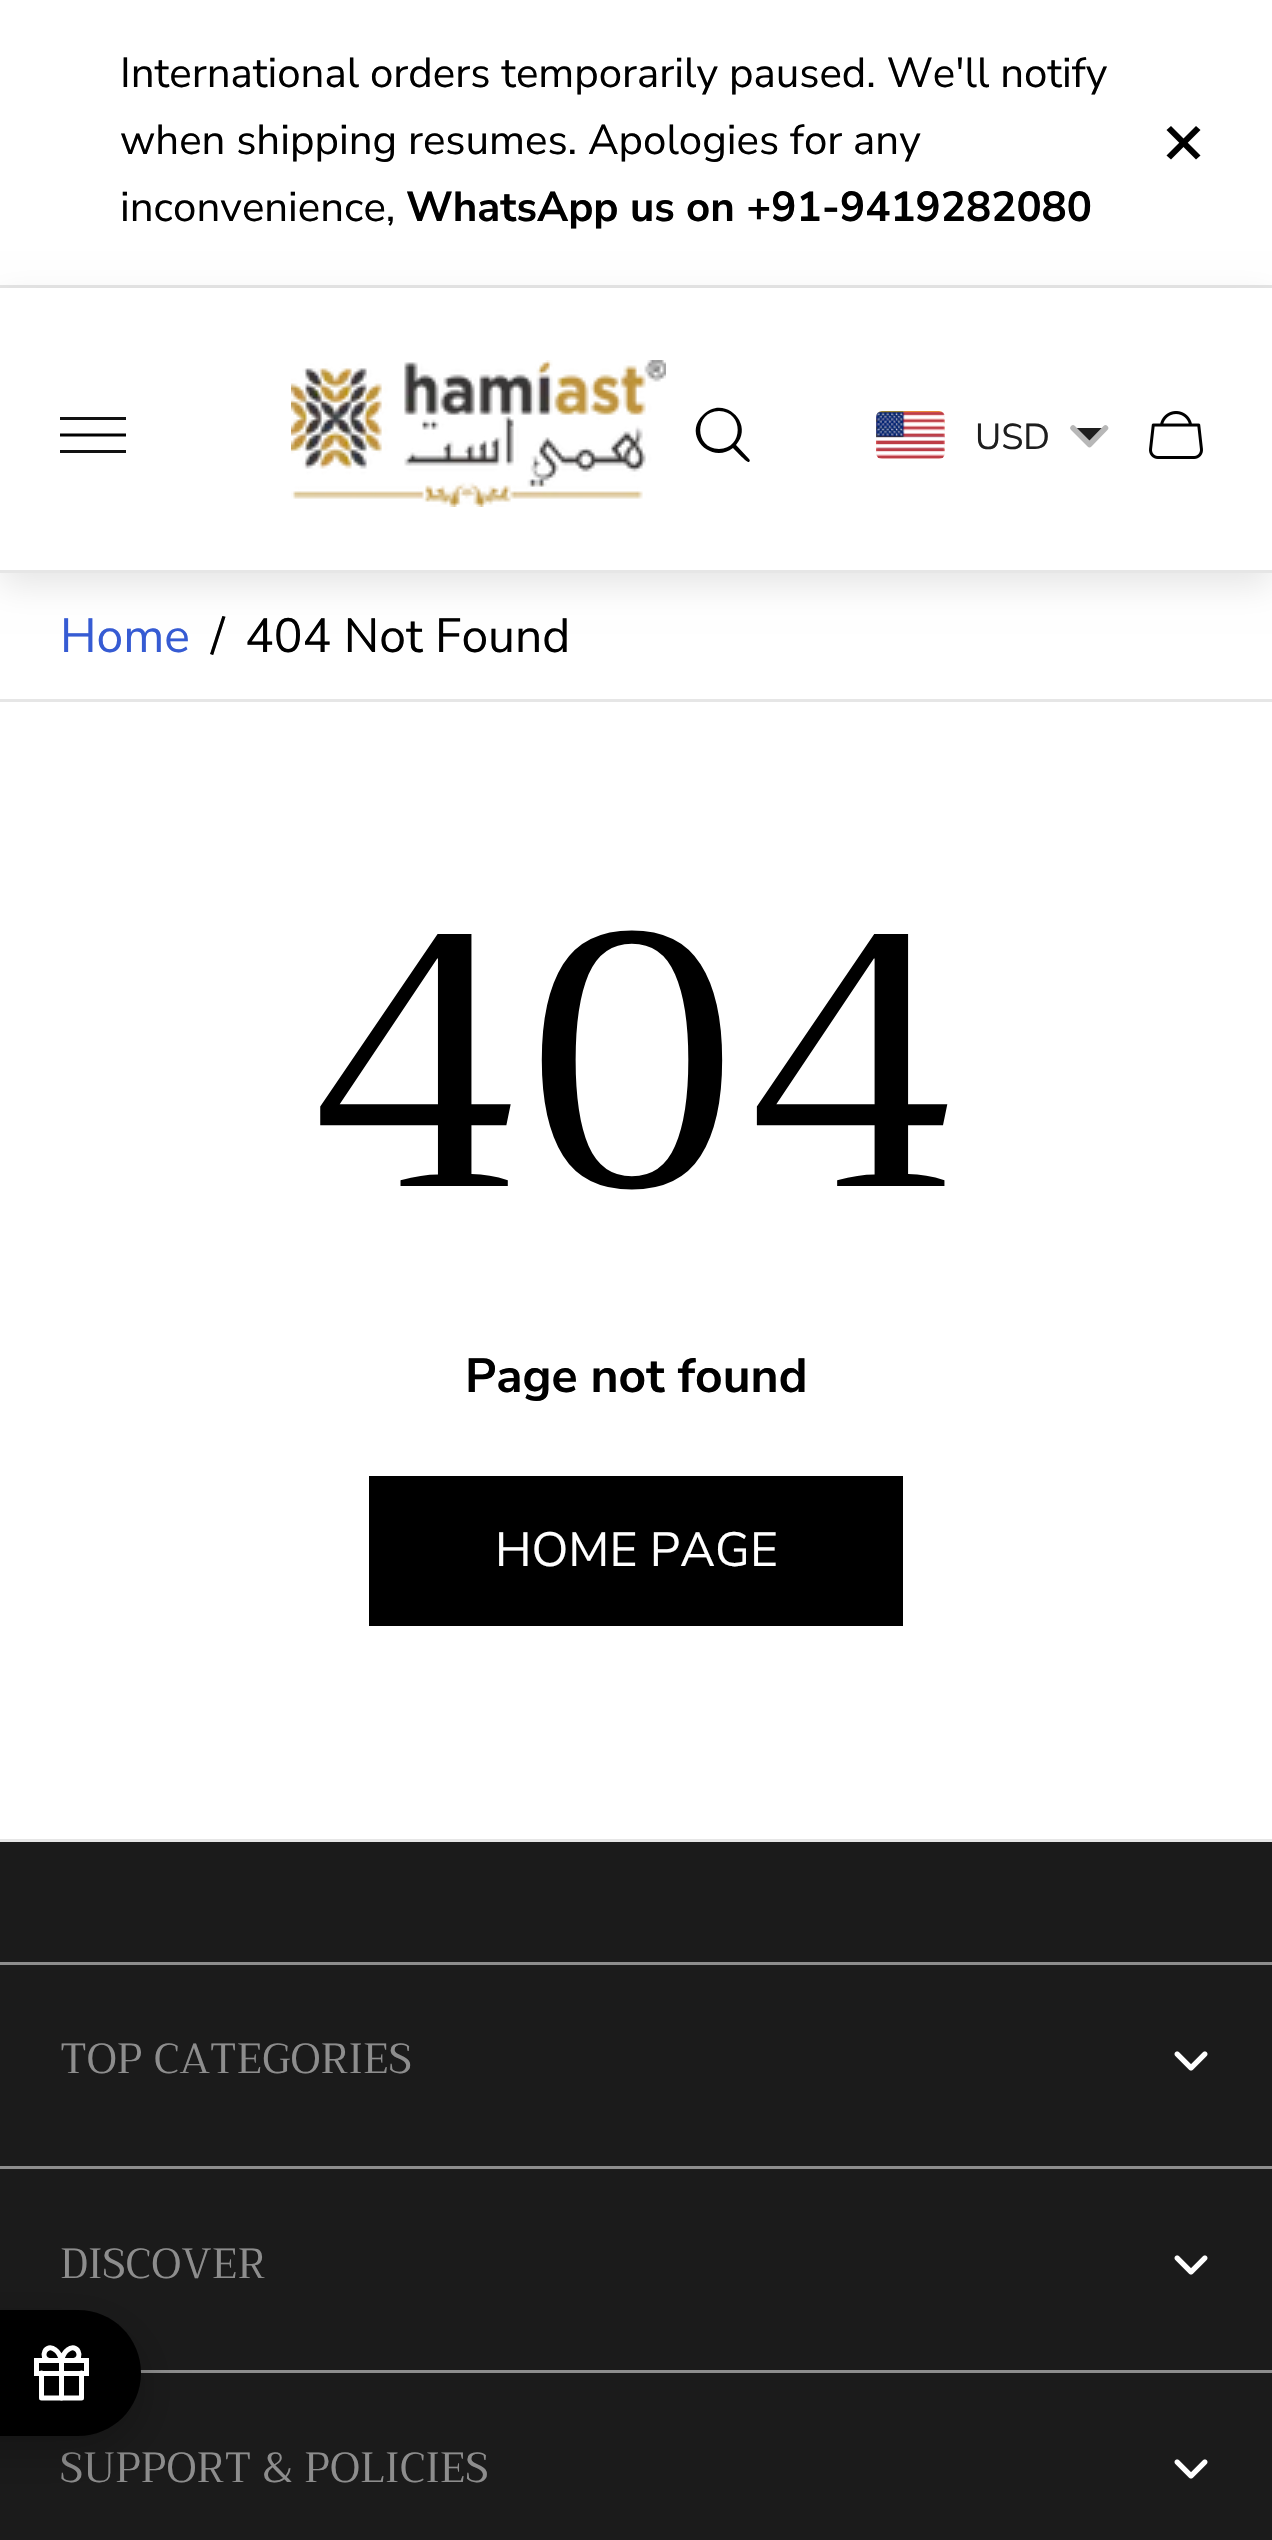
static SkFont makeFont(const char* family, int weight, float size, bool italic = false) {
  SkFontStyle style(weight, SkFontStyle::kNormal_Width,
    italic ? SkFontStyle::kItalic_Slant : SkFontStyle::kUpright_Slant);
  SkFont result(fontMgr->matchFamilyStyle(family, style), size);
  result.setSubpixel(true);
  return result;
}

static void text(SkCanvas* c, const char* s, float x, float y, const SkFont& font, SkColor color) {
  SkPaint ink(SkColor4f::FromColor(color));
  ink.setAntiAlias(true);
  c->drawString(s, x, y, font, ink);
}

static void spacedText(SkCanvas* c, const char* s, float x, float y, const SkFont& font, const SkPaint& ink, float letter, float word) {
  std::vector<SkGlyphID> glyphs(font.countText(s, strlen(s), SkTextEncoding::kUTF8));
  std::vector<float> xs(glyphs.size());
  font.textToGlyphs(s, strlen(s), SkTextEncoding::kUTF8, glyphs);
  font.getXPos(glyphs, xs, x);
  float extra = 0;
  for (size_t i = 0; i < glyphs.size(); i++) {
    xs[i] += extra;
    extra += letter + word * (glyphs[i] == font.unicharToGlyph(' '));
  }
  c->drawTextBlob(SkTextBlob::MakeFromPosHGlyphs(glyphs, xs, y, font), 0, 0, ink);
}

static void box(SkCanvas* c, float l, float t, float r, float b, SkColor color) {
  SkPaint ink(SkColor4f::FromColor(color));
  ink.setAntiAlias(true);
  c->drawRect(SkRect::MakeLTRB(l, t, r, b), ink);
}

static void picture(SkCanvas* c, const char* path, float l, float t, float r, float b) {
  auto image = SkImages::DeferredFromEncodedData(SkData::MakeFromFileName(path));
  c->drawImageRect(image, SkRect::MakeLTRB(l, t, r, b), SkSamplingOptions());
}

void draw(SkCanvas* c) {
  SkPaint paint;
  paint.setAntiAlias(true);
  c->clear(0xffffffff);
  box(c, 0, 285, 1272, 288, 0xffe6e6e6);
  SkFont face1 = makeFont("Nunito Sans", 400, 42);
  text(c, "International orders temporarily paused. We'll notify", 120, 87, face1, 0xff000000);
  text(c, "when shipping resumes. Apologies for any", 120, 154, face1, 0xff000000);
  text(c, "inconvenience,", 120, 221, face1, 0xff000000);
  SkFont face2 = makeFont("Nunito Sans", 700, 42);
  text(c, "WhatsApp us on +91-9419282080", 406, 221, face2, 0xff000000);
  paint.setColor(0xff000000);
  c->drawPath(SkPathBuilder().moveTo(1196, 126).lineTo(1200.5f, 130).lineTo(1171, 159.5f).lineTo(1166.5f, 155.5f).close().detach(), paint);
  c->drawPath(SkPathBuilder().moveTo(1166.5f, 130).lineTo(1171, 126).lineTo(1200.5f, 155.5f).lineTo(1196, 159.5f).close().detach(), paint);
  c->save();
  c->clipPath(SkPathBuilder(SkPathFillType::kEvenOdd).moveTo(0, 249).lineTo(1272, 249).lineTo(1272, 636).lineTo(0, 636).close().moveTo(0, 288).lineTo(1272, 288).lineTo(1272, 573).lineTo(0, 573).close().detach(), true);
  paint.setColor(0x1a000000);
  paint.setMaskFilter(SkMaskFilter::MakeBlur(kNormal_SkBlurStyle, 16.5f));
  c->drawRect(SkRect::MakeLTRB(0, 300, 1272, 585), paint);
  paint.setMaskFilter(nullptr);
  c->restore();
  box(c, 0, 570, 1272, 573, 0xffe6e6e6);
  box(c, 60, 417, 126, 420, 0xff111111);
  paint.setStyle(SkPaint::kStroke_Style);
  paint.setStrokeWidth(2.8f);
  paint.setColor(0xff000000);
  c->drawPath(SkPathBuilder().moveTo(60, 435).lineTo(126, 435).detach(), paint);
  box(c, 60, 450, 126, 453, 0xff111111);
  picture(c, "img_01.png", 291, 360, 666, 507);
  paint.setStyle(SkPaint::kFill_Style);
  c->drawPath(SkPathBuilder().moveTo(749, 459).lineTo(736, 445).cubicTo(755, 424, 724, 394, 703, 415).cubicTo(682, 435, 711, 465, 733, 448).cubicTo(735, 450, 747, 463, 749, 462).cubicTo(750, 461, 750, 460, 749, 459).close().moveTo(719, 449).cubicTo(694, 449, 694, 411, 719, 411).cubicTo(744, 411, 744, 449, 719, 449).close().detach(), paint);
  picture(c, "img_02.png", 876, 411, 945, 459);
  SkFont face3 = makeFont("Nunito Sans", 400, 36);
  text(c, "USD", 975, 449, face3, 0xff1e1e1e);
  paint.setColor(0xff1e1e1e);
  c->drawPath(SkPathBuilder().moveTo(1073, 428).lineTo(1089.5f, 444.5f).lineTo(1105.5f, 428).detach(), paint);
  paint.setStyle(SkPaint::kStroke_Style);
  paint.setStrokeWidth(5.5f);
  paint.setStrokeCap(SkPaint::kRound_Cap);
  paint.setStrokeJoin(SkPaint::kRound_Join);
  paint.setColor(0xffb7b7b7);
  c->drawPath(SkPathBuilder().moveTo(1073, 428).lineTo(1089.5f, 444.5f).lineTo(1105.5f, 428).detach(), paint);
  picture(c, "img_03.png", 1149, 411, 1203, 459);
  box(c, 0, 699, 1272, 702, 0xffe6e6e6);
  SkFont face4 = makeFont("Nunito Sans", 400, 48);
  text(c, "Home", 60, 652, face4, 0xff365bd3);
  text(c, "/", 211, 652, face4, 0xff000000);
  text(c, "404 Not Found", 245, 652, face4, 0xff000000);
  SkFont face5 = makeFont("Trirong", 400, 360);
  paint.setStyle(SkPaint::kFill_Style);
  paint.setColor(0xff000000);
  spacedText(c, "404", 308, 1186, face5, paint, 7, 0);
  SkFont face6 = makeFont("Nunito Sans", 700, 48);
  text(c, "Page not found", 465, 1392, face6, 0xff000000);
  box(c, 369, 1476, 903, 1626, 0xff000000);
  text(c, "HOME PAGE", 495, 1566, face4, 0xffffffff);
  box(c, 0, 1842, 1272, 2540, 0xff1b1b1b);
  box(c, 0, 1839, 1272, 1842, 0xffe6e6e6);
  box(c, 0, 1962, 1272, 1965, 0xff8d8d8d);
  SkFont face7 = makeFont("Trirong", 400, 42);
  text(c, "TOP CATEGORIES", 60, 2073, face7, 0xff8d8d8d);
  picture(c, "img_04.png", 1174, 2051, 1208, 2071);
  box(c, 0, 2166, 1272, 2169, 0xff8d8d8d);
  text(c, "DISCOVER", 60, 2278, face7, 0xff8d8d8d);
  picture(c, "img_04.png", 1174, 2255, 1208, 2275);
  box(c, 140, 2370, 1272, 2373, 0xff8d8d8d);
  text(c, "SUPPORT & POLICIES", 60, 2482, face7, 0xff8d8d8d);
  picture(c, "img_04.png", 1174, 2459, 1208, 2479);
  paint.setColor(0x40000000);
  paint.setMaskFilter(SkMaskFilter::MakeBlur(kNormal_SkBlurStyle, 22.5f));
  c->drawRoundRect(SkRect::MakeLTRB(-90, 2325, 141, 2451), 63, 63, paint);
  paint.setMaskFilter(nullptr);
  paint.setColor(0xff000000);
  c->drawPath(SkPathBuilder().moveTo(-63, 2310).lineTo(78, 2310).cubicTo(113, 2310, 141, 2338, 141, 2373).cubicTo(141, 2408, 113, 2436, 78, 2436).lineTo(-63, 2436).close().detach(), paint);
  paint.setStyle(SkPaint::kStroke_Style);
  paint.setStrokeWidth(5);
  paint.setColor(0xffffffff);
  c->drawPath(SkPathBuilder().moveTo(81.5f, 2373).lineTo(81.5f, 2398).lineTo(41.5f, 2398).lineTo(41.5f, 2373).detach(), paint);
  paint.setStrokeCap(SkPaint::kButt_Cap);
  paint.setStrokeJoin(SkPaint::kMiter_Join);
  c->drawRect(SkRect::MakeLTRB(36.5f, 2360.5f, 86.5f, 2373.5f), paint);
  paint.setStrokeCap(SkPaint::kRound_Cap);
  paint.setStrokeJoin(SkPaint::kRound_Join);
  c->drawPath(SkPathBuilder().moveTo(61.5f, 2398).lineTo(61.5f, 2360.5f).moveTo(61.5f, 2360.5f).lineTo(49, 2360.5f).cubicTo(39, 2358.5f, 45.5f, 2342, 55.5f, 2350).cubicTo(59, 2352.5f, 60.5f, 2356.5f, 61.5f, 2360.5f).close().moveTo(61.5f, 2360.5f).lineTo(74, 2360.5f).cubicTo(84, 2358.5f, 77.5f, 2342, 67.5f, 2350).cubicTo(64, 2352.5f, 62.5f, 2356.5f, 61.5f, 2360.5f).close().detach(), paint);
}
